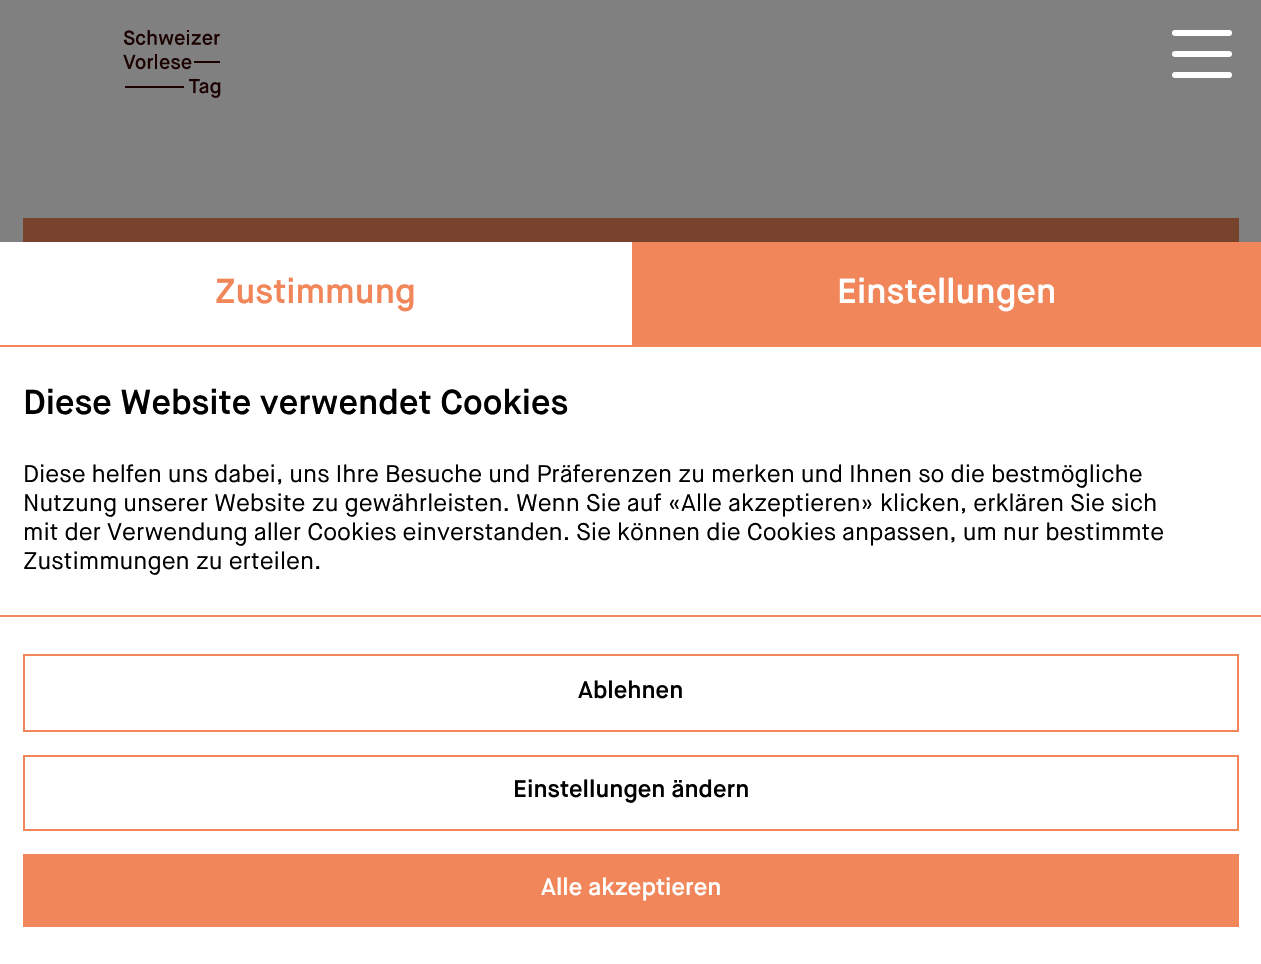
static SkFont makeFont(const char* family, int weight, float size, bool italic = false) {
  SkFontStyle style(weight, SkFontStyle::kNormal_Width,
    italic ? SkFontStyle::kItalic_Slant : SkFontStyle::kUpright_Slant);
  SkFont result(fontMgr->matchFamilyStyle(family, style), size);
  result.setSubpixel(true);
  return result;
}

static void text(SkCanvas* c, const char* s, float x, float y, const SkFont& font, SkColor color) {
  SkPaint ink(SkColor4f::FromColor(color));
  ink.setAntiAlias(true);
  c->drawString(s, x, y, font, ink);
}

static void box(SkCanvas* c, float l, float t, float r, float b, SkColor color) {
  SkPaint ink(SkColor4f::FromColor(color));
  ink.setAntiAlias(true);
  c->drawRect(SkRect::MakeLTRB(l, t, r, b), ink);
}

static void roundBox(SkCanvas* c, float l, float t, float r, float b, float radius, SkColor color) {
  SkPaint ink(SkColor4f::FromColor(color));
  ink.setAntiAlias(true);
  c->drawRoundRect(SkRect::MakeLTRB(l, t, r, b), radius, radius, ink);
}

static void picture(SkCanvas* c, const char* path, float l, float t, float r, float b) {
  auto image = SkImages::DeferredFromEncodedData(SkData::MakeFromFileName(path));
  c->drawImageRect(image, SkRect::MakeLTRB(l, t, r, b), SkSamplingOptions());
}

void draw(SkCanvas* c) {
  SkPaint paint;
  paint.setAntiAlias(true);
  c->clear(0xff808080);
  picture(c, "img_01.png", 123, 30, 221, 98);
  roundBox(c, 1172, 51, 1232, 57, 3, 0xffffffff);
  roundBox(c, 1172, 30, 1232, 36, 3, 0xffffffff);
  roundBox(c, 1172, 72, 1232, 78, 3, 0xffffffff);
  box(c, 23, 218, 1239, 242, 0xff78432d);
  box(c, 0, 347, 1261, 964, 0xffffffff);
  box(c, 0, 242, 1261, 347, 0xfff08659);
  box(c, 0, 242, 632, 345, 0xffffffff);
  SkFont face1 = makeFont("Maison Neue", 600, 34.5f);
  text(c, "Zustimmung", 215, 303, face1, 0xfff08659);
  text(c, "Einstellungen", 837, 303, face1, 0xffffffff);
  text(c, "Diese Website verwendet Cookies", 23, 414, face1, 0xff000000);
  SkFont face2 = makeFont("Maison Neue", 400, 24);
  text(c, "Diese helfen uns dabei, uns Ihre Besuche und Präferenzen zu merken und Ihnen so die bestmögliche", 23, 482, face2, 0xff000000);
  text(c, "Nutzung unserer Website zu gewährleisten. Wenn Sie auf «Alle akzeptieren» klicken, erklären Sie sich", 23, 511, face2, 0xff000000);
  text(c, "mit der Verwendung aller Cookies einverstanden. Sie können die Cookies anpassen, um nur bestimmte", 23, 540, face2, 0xff000000);
  text(c, "Zustimmungen zu erteilen.", 23, 569, face2, 0xff000000);
  box(c, 0, 615, 1261, 617, 0xfff08659);
  paint.setStyle(SkPaint::kStroke_Style);
  paint.setStrokeWidth(2);
  paint.setColor(0xfff08659);
  c->drawRect(SkRect::MakeLTRB(24, 655, 1238, 731), paint);
  SkFont face3 = makeFont("Maison Neue", 600, 24);
  text(c, "Ablehnen", 578, 698, face3, 0xff000000);
  c->drawRect(SkRect::MakeLTRB(24, 756, 1238, 830), paint);
  text(c, "Einstellungen ändern", 513, 797, face3, 0xff000000);
  box(c, 23, 854, 1239, 927, 0xfff08659);
  text(c, "Alle akzeptieren", 541, 895, face3, 0xffffffff);
}
